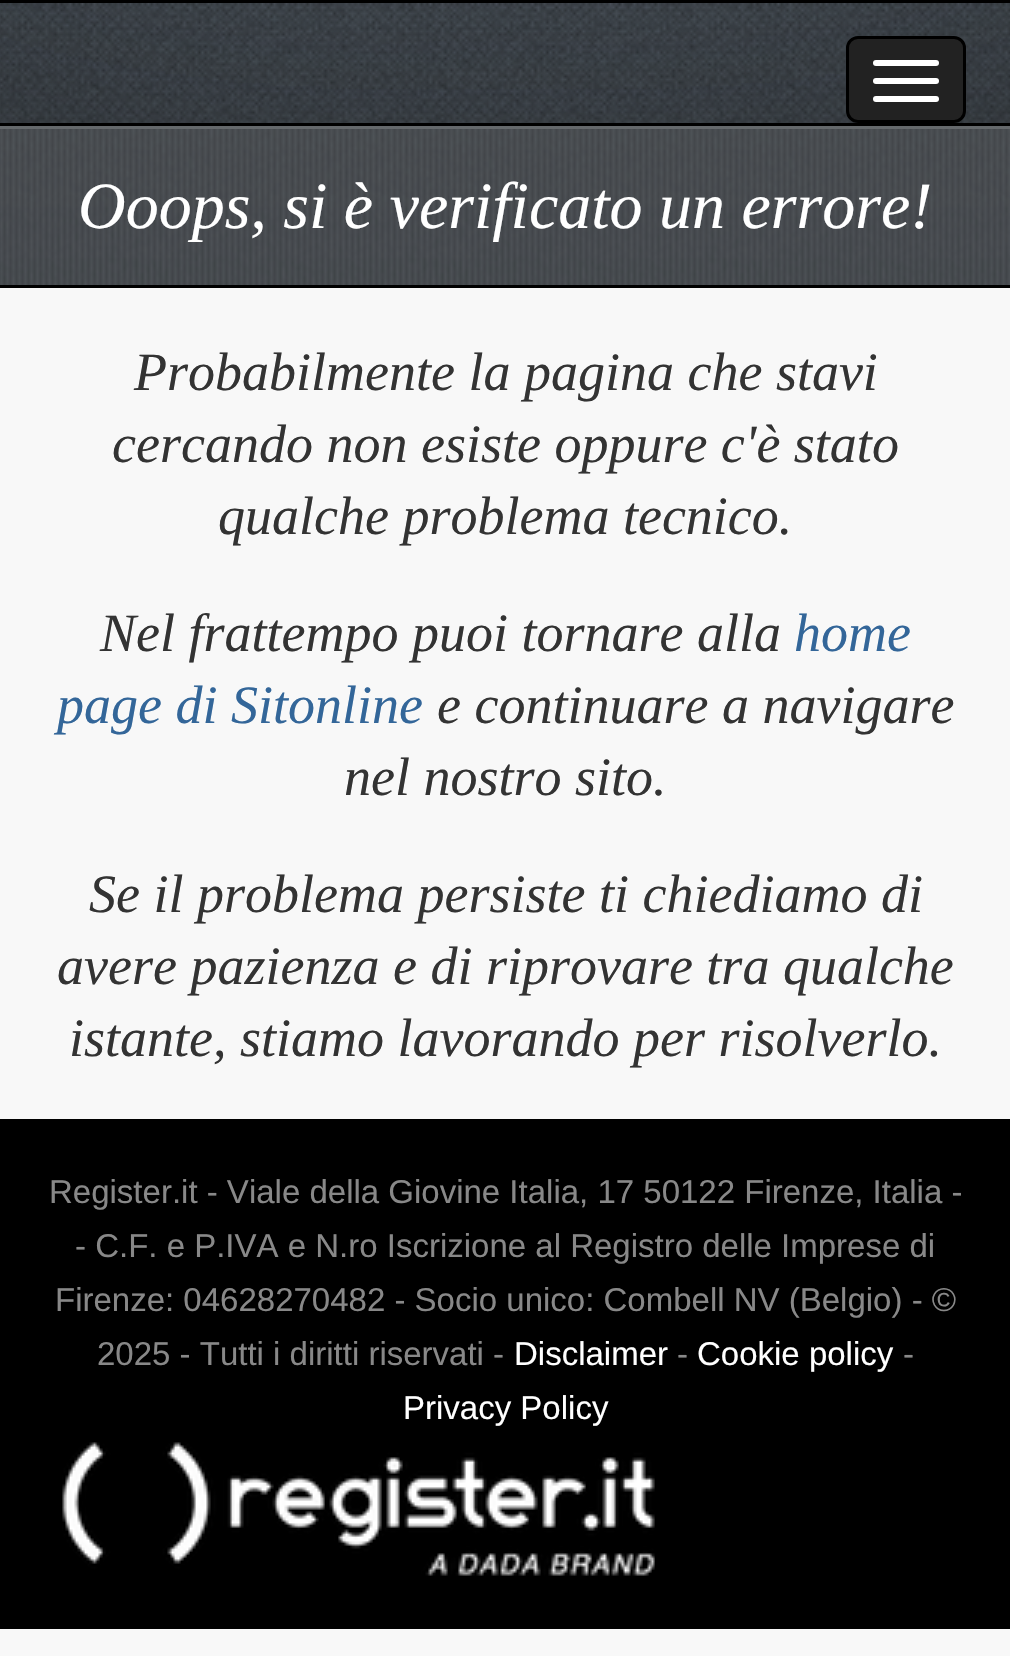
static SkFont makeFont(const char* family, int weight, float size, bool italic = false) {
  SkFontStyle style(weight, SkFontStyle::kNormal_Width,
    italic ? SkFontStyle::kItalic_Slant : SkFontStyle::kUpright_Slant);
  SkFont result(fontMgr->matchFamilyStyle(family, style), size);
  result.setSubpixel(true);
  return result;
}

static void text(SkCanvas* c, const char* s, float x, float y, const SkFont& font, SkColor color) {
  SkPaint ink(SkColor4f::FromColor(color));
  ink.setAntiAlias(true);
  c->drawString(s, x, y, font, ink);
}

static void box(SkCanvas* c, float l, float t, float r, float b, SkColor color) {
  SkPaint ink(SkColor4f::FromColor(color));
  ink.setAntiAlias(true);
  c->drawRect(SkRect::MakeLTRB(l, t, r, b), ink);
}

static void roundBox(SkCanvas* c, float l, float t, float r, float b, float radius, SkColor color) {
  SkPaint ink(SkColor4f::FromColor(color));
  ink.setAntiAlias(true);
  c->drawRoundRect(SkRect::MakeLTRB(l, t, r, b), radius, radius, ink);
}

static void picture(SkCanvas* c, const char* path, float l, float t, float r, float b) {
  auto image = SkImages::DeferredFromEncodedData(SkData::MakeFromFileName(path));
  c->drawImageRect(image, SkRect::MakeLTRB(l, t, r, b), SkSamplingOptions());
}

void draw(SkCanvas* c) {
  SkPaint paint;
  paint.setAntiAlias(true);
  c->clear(0xfff8f8f8);
  box(c, 0, 3, 1010, 123, 0xff2c3035);
  box(c, 0, 0, 1010, 3, 0xff000000);
  box(c, 0, 123, 1010, 126, 0xff000000);
  picture(c, "img_01.png", 0, 3, 1010, 123);
  picture(c, "img_02.png", 0, 3, 1010, 123);
  paint.setColor(0xff222222);
  c->drawRoundRect(SkRect::MakeLTRB(847.5f, 37.5f, 964.5f, 121.5f), 10.5f, 10.5f, paint);
  paint.setStyle(SkPaint::kStroke_Style);
  paint.setStrokeWidth(3);
  paint.setColor(0xff000000);
  c->drawRoundRect(SkRect::MakeLTRB(847.5f, 37.5f, 964.5f, 121.5f), 10.5f, 10.5f, paint);
  roundBox(c, 873, 60, 939, 66, 3, 0xffffffff);
  roundBox(c, 873, 78, 939, 84, 3, 0xffffffff);
  roundBox(c, 873, 96, 939, 102, 3, 0xffffffff);
  picture(c, "img_03.png", 0, 129, 1010, 285);
  box(c, 0, 126, 1010, 129, 0xff65696c);
  box(c, 0, 285, 1010, 288, 0xff000000);
  SkFont face1 = makeFont("Liberation Serif", 400, 66, true);
  text(c, "Ooops, si è verificato un errore!", 78, 228, face1, 0xffffffff);
  SkFont face2 = makeFont("Liberation Serif", 400, 54, true);
  text(c, "Probabilmente la pagina che stavi", 134, 390, face2, 0xff333333);
  text(c, "cercando non esiste oppure c'è stato", 112, 462, face2, 0xff333333);
  text(c, "qualche problema tecnico.", 218, 534, face2, 0xff333333);
  text(c, "Nel frattempo puoi tornare alla", 100, 651, face2, 0xff333333);
  text(c, "home", 794, 651, face2, 0xff336699);
  text(c, "page di Sitonline", 57, 723, face2, 0xff336699);
  text(c, "e continuare a navigare", 437, 723, face2, 0xff333333);
  text(c, "nel nostro sito.", 344, 795, face2, 0xff333333);
  text(c, "Se il problema persiste ti chiediamo di", 89, 912, face2, 0xff333333);
  text(c, "avere pazienza e di riprovare tra qualche", 57, 984, face2, 0xff333333);
  text(c, "istante, stiamo lavorando per risolverlo.", 69, 1056, face2, 0xff333333);
  box(c, 0, 1119, 1010, 1629, 0xff000000);
  SkFont face3 = makeFont("Liberation Sans", 400, 33);
  text(c, "Register.it - Viale della Giovine Italia, 17 50122 Firenze, Italia -", 49, 1203, face3, 0xff888888);
  text(c, "- C.F. e P.IVA e N.ro Iscrizione al Registro delle Imprese di", 75, 1257, face3, 0xff888888);
  text(c, "Firenze: 04628270482 - Socio unico: Combell NV (Belgio) - ©", 55, 1311, face3, 0xff888888);
  text(c, "2025 - Tutti i diritti riservati -", 97, 1365, face3, 0xff888888);
  text(c, "Disclaimer", 514, 1365, face3, 0xffffffff);
  text(c, "-", 677, 1365, face3, 0xff888888);
  text(c, "Cookie policy", 697, 1365, face3, 0xffffffff);
  text(c, "-", 903, 1365, face3, 0xff888888);
  text(c, "Privacy Policy", 403, 1419, face3, 0xffffffff);
  picture(c, "img_04.png", 62, 1442, 655, 1576);
}
